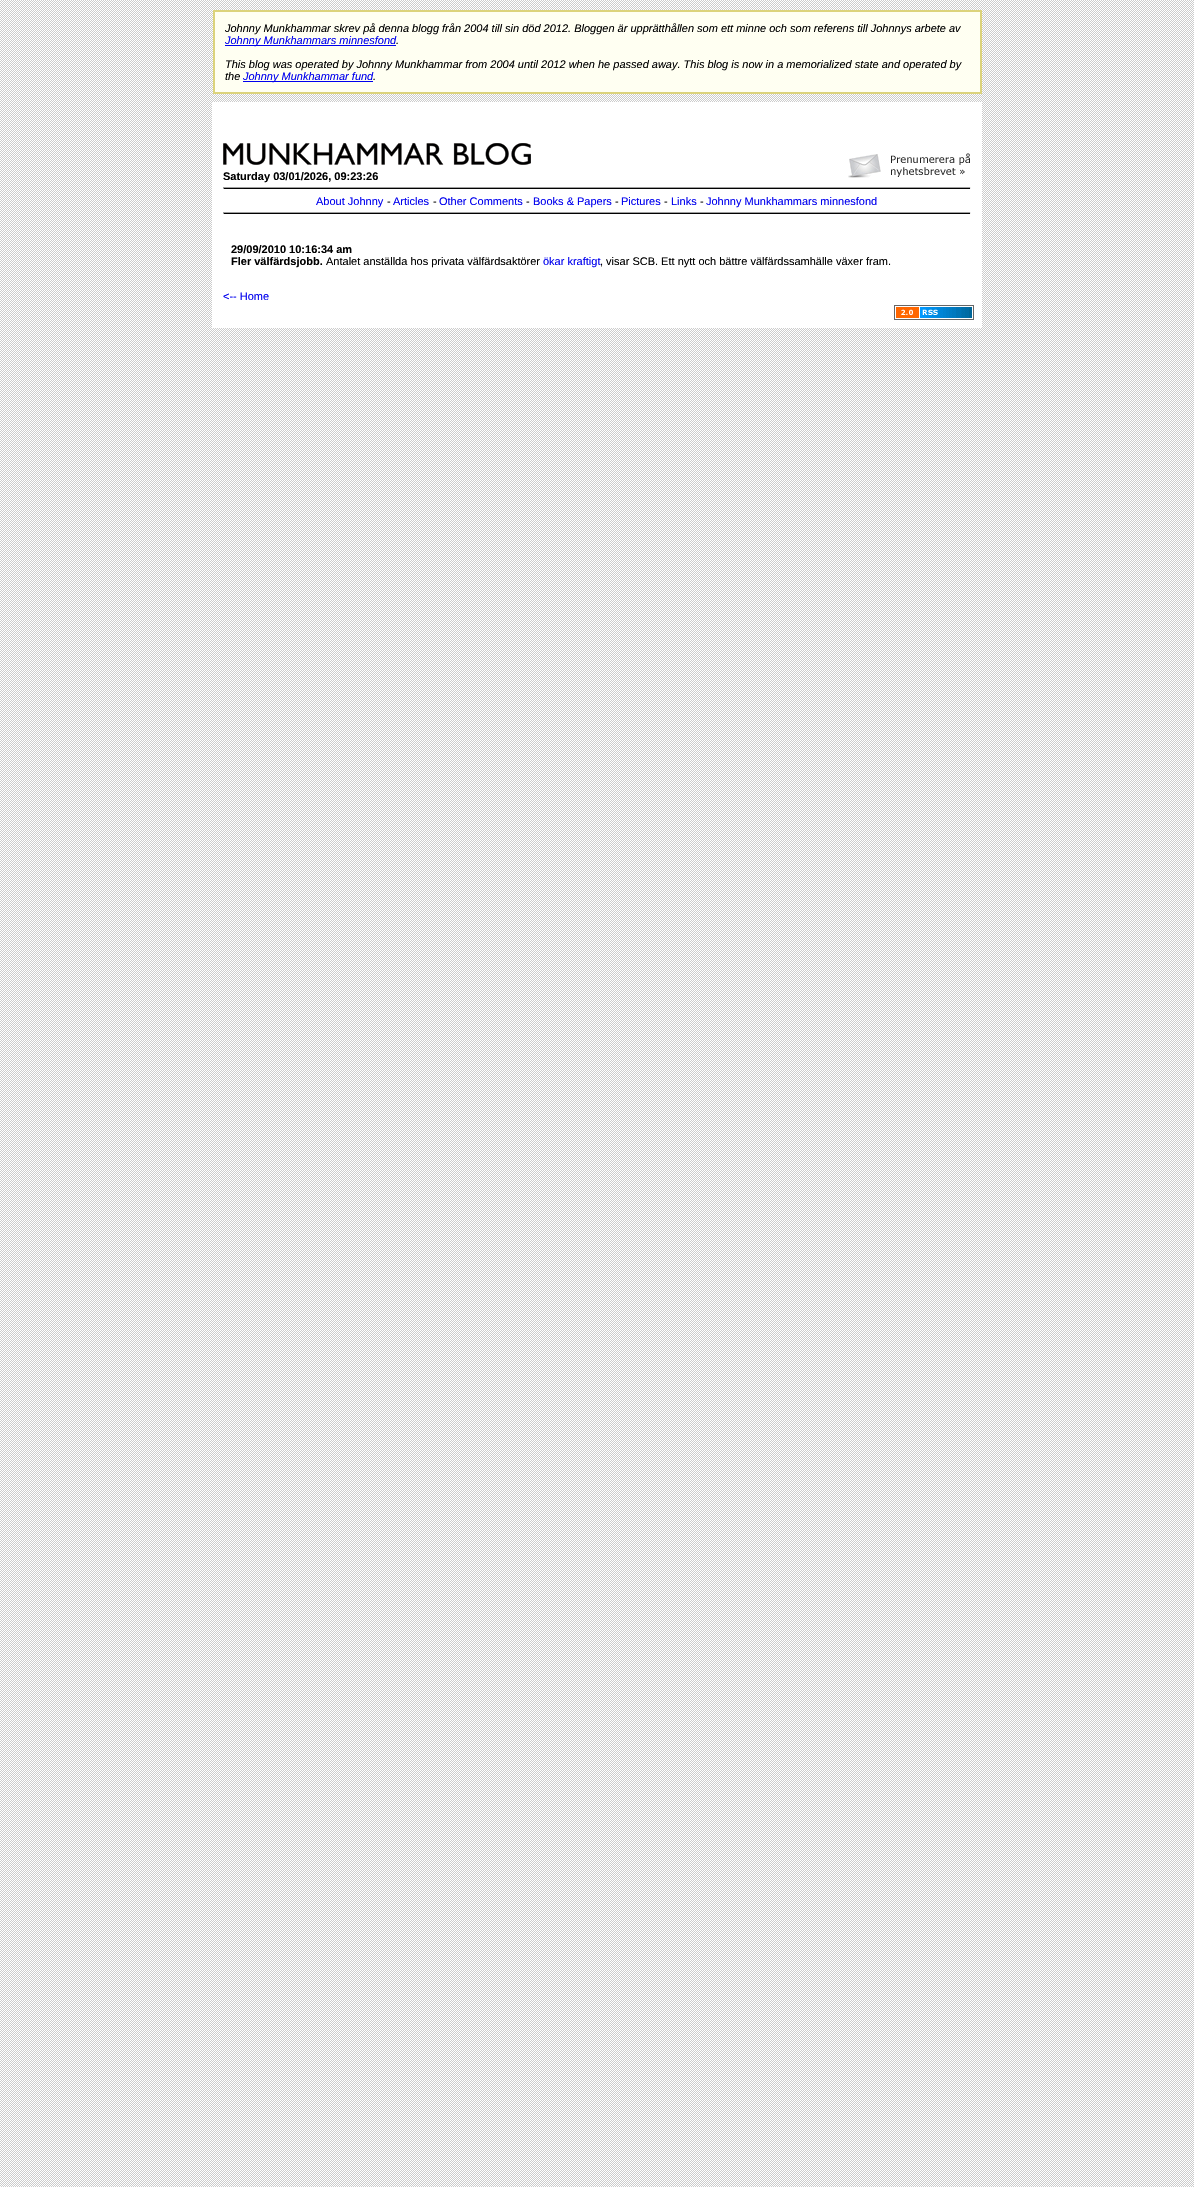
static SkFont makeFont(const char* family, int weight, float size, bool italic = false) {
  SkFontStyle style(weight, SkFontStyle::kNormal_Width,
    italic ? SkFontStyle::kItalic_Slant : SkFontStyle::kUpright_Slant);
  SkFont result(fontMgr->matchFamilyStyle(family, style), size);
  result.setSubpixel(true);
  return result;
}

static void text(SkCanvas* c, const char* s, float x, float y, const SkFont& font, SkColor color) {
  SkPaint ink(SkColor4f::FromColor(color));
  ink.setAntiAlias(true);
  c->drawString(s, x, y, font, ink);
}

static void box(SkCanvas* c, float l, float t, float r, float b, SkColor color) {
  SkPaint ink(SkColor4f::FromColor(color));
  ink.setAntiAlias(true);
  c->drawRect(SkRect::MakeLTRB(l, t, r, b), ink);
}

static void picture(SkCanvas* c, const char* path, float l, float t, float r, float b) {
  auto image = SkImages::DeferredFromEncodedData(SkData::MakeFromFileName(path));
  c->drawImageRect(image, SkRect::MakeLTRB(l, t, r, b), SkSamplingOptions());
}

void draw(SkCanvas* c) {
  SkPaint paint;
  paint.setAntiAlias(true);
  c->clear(0xffffffff);
  picture(c, "img_01.png", 0, 0, 1194, 2187);
  paint.setColor(0xfffffff2);
  c->drawRect(SkRect::MakeLTRB(214, 11, 981, 93), paint);
  paint.setStyle(SkPaint::kStroke_Style);
  paint.setStrokeWidth(2);
  paint.setColor(0xffdcd37c);
  c->drawRect(SkRect::MakeLTRB(214, 11, 981, 93), paint);
  SkFont face1 = makeFont("Liberation Sans", 400, 11, true);
  text(c, "Johnny Munkhammar skrev på denna blogg från 2004 till sin död 2012. Bloggen är upprätthållen som ett minne och som referens till Johnnys arbete av", 225, 32, face1, 0xff000000);
  box(c, 225, 45, 396, 46, 0xff0000ee);
  text(c, "Johnny Munkhammars minnesfond", 225, 44, face1, 0xff0000ee);
  text(c, ".", 396, 44, face1, 0xff000000);
  text(c, "This blog was operated by Johnny Munkhammar from 2004 until 2012 when he passed away. This blog is now in a memorialized state and operated by", 225, 68, face1, 0xff000000);
  text(c, "the", 225, 80, face1, 0xff000000);
  box(c, 243, 81, 373, 82, 0xff0000ee);
  text(c, "Johnny Munkhammar fund", 243, 80, face1, 0xff0000ee);
  text(c, ".", 373, 80, face1, 0xff000000);
  box(c, 212, 102, 982, 328, 0xffffffff);
  picture(c, "img_02.png", 223, 143, 531, 165);
  picture(c, "img_03.png", 848, 153, 970, 178);
  SkFont face2 = makeFont("Liberation Sans", 700, 11);
  text(c, "Saturday 03/01/2026, 09:23:26", 223, 180, face2, 0xff000000);
  box(c, 223, 188, 971, 189, 0xff000000);
  box(c, 223, 187, 971, 188, 0xff9f9f9f);
  box(c, 970, 187, 971, 189, 0xffeeeeee);
  box(c, 223, 187, 224, 189, 0xff9f9f9f);
  SkFont face3 = makeFont("Liberation Sans", 400, 11);
  text(c, "About Johnny", 316, 205, face3, 0xff0000ee);
  text(c, "-", 387, 205, face3, 0xff000000);
  text(c, "Articles", 393, 205, face3, 0xff0000ee);
  text(c, "-", 433, 205, face3, 0xff000000);
  text(c, "Other Comments", 439, 205, face3, 0xff0000ee);
  text(c, "-", 526, 205, face3, 0xff000000);
  text(c, "Books & Papers", 533, 205, face3, 0xff0000ee);
  text(c, "-", 615, 205, face3, 0xff000000);
  text(c, "Pictures", 621, 205, face3, 0xff0000ee);
  text(c, "-", 664, 205, face3, 0xff000000);
  text(c, "Links", 671, 205, face3, 0xff0000ee);
  text(c, "-", 700, 205, face3, 0xff000000);
  text(c, "Johnny Munkhammars minnesfond", 706, 205, face3, 0xff0000ee);
  box(c, 223, 213, 971, 214, 0xff000000);
  box(c, 223, 212, 971, 213, 0xff9f9f9f);
  box(c, 970, 212, 971, 214, 0xffeeeeee);
  box(c, 223, 212, 224, 214, 0xff9f9f9f);
  text(c, "29/09/2010 10:16:34 am", 231, 253, face2, 0xff000000);
  text(c, "Fler välfärdsjobb.", 231, 265, face2, 0xff000000);
  text(c, "Antalet anställda hos privata välfärdsaktörer", 326, 265, face3, 0xff000000);
  text(c, "ökar kraftigt", 543, 265, face3, 0xff0000ee);
  text(c, ", visar SCB. Ett nytt och bättre välfärdssamhälle växer fram.", 600, 265, face3, 0xff000000);
  text(c, "<-- Home", 223, 300, face3, 0xff0000ee);
  picture(c, "img_04.png", 894, 305, 974, 320);
}
